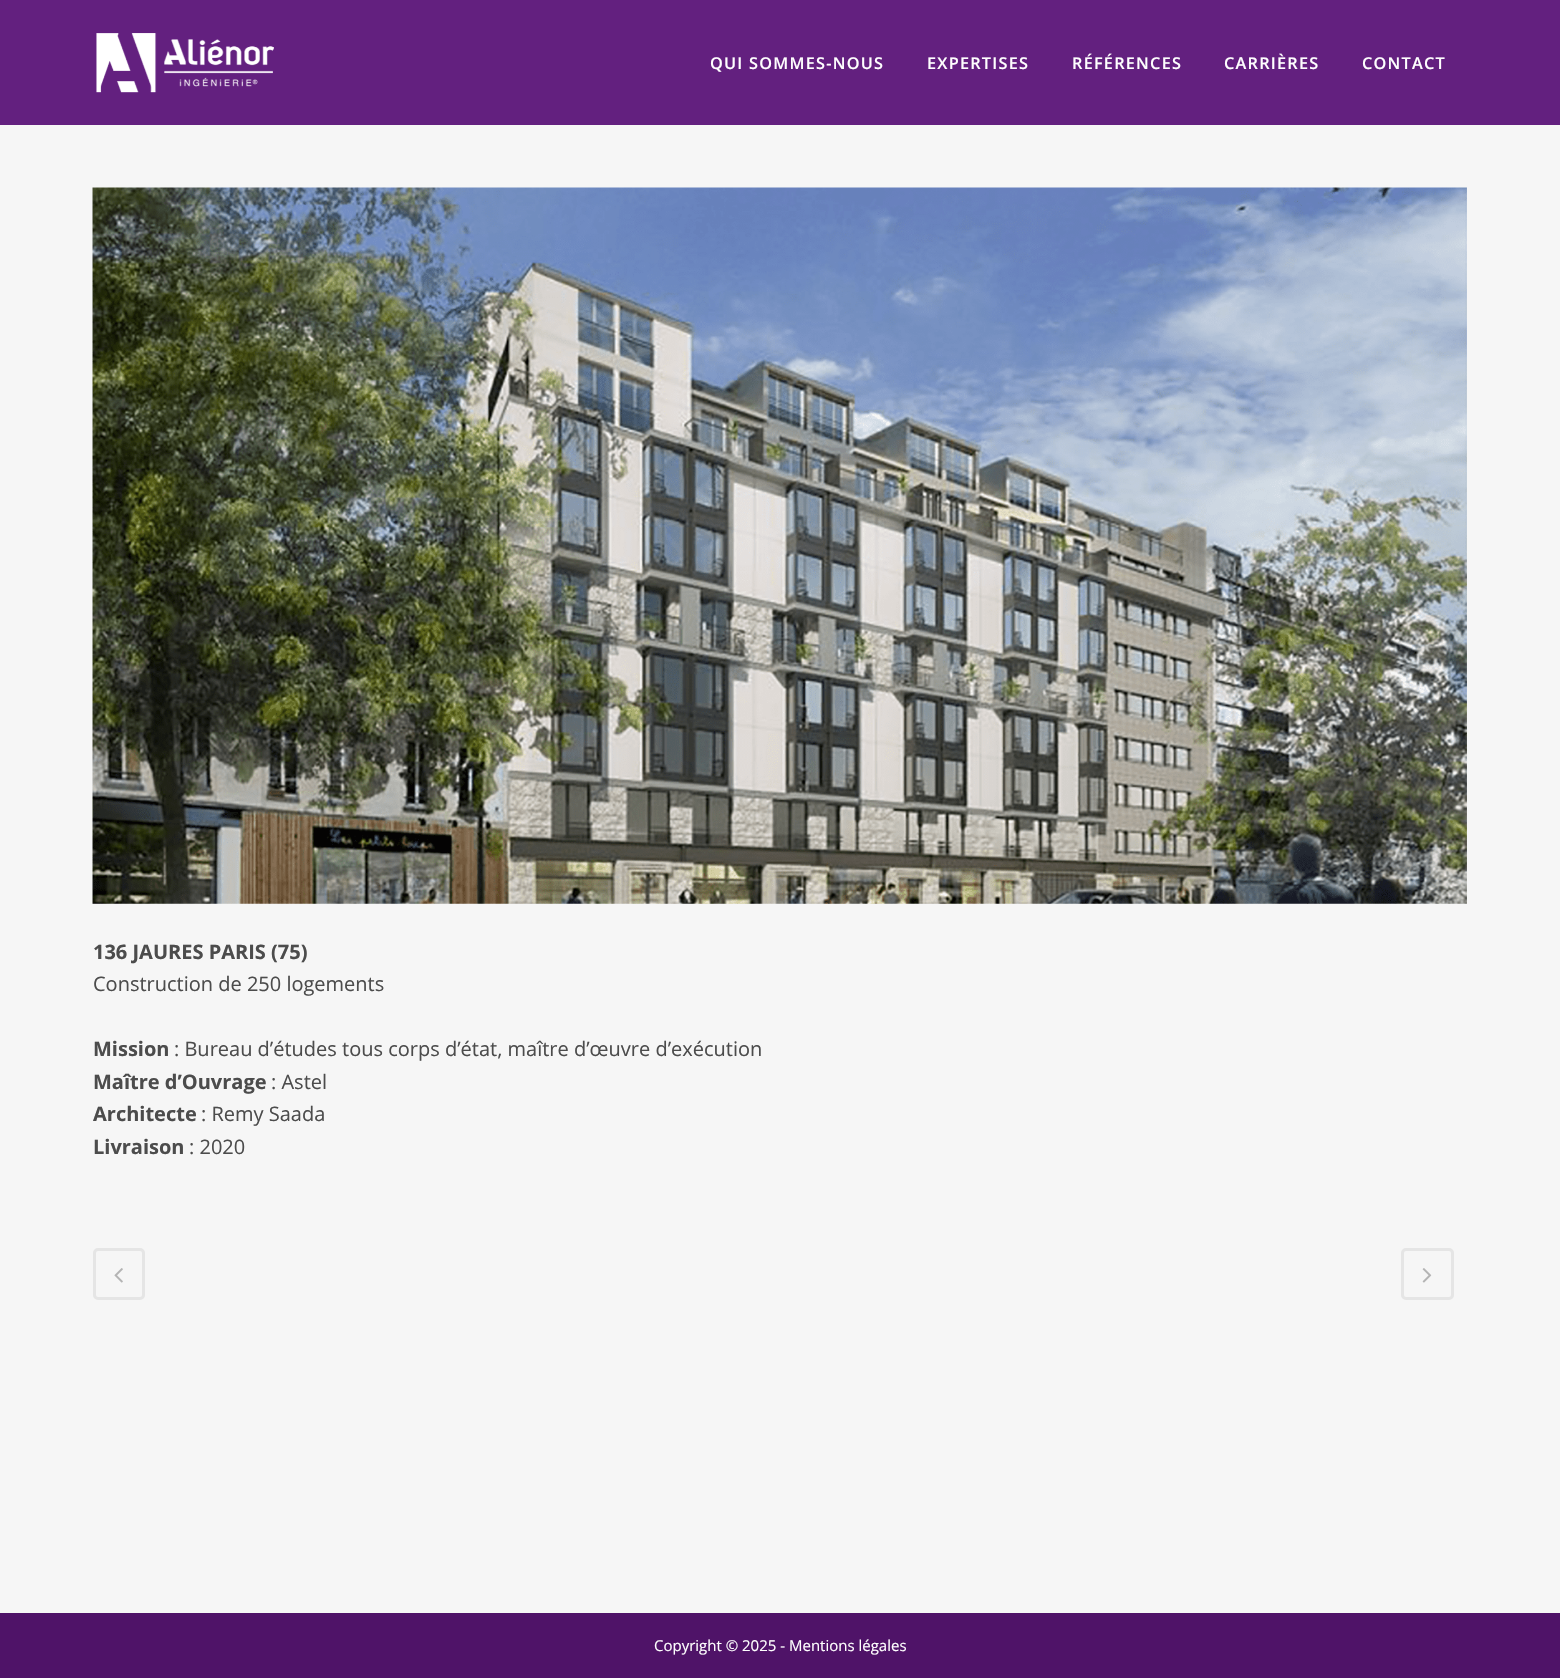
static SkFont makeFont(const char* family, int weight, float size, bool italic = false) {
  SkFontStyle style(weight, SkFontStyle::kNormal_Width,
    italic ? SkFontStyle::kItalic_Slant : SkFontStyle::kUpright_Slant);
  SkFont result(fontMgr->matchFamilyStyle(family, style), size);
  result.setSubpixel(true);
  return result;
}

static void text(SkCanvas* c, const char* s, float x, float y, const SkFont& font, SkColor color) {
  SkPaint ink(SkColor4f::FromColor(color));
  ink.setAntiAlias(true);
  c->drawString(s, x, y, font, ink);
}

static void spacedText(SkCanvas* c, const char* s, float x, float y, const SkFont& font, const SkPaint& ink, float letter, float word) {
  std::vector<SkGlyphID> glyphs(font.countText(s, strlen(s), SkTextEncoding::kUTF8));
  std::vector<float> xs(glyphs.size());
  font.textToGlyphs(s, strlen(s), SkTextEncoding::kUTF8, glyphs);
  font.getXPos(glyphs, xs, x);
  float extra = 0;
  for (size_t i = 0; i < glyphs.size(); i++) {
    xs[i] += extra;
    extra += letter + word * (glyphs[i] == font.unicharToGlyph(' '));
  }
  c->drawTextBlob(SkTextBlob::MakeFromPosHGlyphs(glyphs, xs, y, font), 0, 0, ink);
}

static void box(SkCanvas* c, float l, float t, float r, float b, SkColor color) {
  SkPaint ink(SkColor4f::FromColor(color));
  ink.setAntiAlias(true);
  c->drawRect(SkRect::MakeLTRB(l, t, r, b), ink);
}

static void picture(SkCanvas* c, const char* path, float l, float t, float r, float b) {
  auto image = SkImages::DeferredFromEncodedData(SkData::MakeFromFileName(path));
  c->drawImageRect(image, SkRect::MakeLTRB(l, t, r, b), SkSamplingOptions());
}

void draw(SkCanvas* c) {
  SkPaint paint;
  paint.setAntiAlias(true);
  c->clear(0xfff6f6f6);
  box(c, 0, 0, 1560, 125, 0xff63207f);
  picture(c, "img_01.png", 96, 33, 274, 93);
  SkFont face1 = makeFont("Open Sans", 600, 16.25f);
  paint.setColor(0xffffffff);
  spacedText(c, "QUI SOMMES-NOUS", 710, 69, face1, paint, 1.25f, 0);
  spacedText(c, "EXPERTISES", 927, 69, face1, paint, 1.25f, 0);
  spacedText(c, "RÉFÉRENCES", 1072, 69, face1, paint, 1.25f, 0);
  spacedText(c, "CARRIÈRES", 1224, 69, face1, paint, 1.25f, 0);
  spacedText(c, "CONTACT", 1362, 69, face1, paint, 1.25f, 0);
  picture(c, "img_02.png", 92, 187, 1467, 904);
  SkFont face2 = makeFont("Open Sans", 700, 20);
  text(c, "136 JAURES PARIS (75)", 93, 959, face2, 0xff4c4c4c);
  SkFont face3 = makeFont("Open Sans", 400, 20);
  text(c, "Construction de 250 logements", 93, 991, face3, 0xff4c4c4c);
  text(c, "Mission", 93, 1056, face2, 0xff4c4c4c);
  text(c, ": Bureau d’études tous corps d’état, maître d’œuvre d’exécution", 174, 1056, face3, 0xff4c4c4c);
  text(c, "Maître d’Ouvrage", 93, 1089, face2, 0xff4c4c4c);
  text(c, ": Astel", 271, 1089, face3, 0xff4c4c4c);
  text(c, "Architecte", 93, 1121, face2, 0xff4c4c4c);
  text(c, ": Remy Saada", 201, 1121, face3, 0xff4c4c4c);
  text(c, "Livraison", 93, 1154, face2, 0xff4c4c4c);
  text(c, ": 2020", 189, 1154, face3, 0xff4c4c4c);
  paint.setStyle(SkPaint::kStroke_Style);
  paint.setStrokeWidth(3);
  paint.setColor(0xffe5e5e5);
  c->drawRoundRect(SkRect::MakeLTRB(94.5f, 1249.5f, 143.5f, 1298.5f), 3.5f, 3.5f, paint);
  picture(c, "img_03.png", 114, 1268, 123, 1283);
  c->drawRoundRect(SkRect::MakeLTRB(1402.5f, 1249.5f, 1452.5f, 1298.5f), 3.5f, 3.5f, paint);
  picture(c, "img_04.png", 1422, 1268, 1432, 1283);
  box(c, 0, 1613, 1560, 1678, 0xff4f1368);
  SkFont face4 = makeFont("Open Sans", 400, 15);
  text(c, "Copyright © 2025 - Mentions légales", 654, 1651, face4, 0xffffffff);
}
